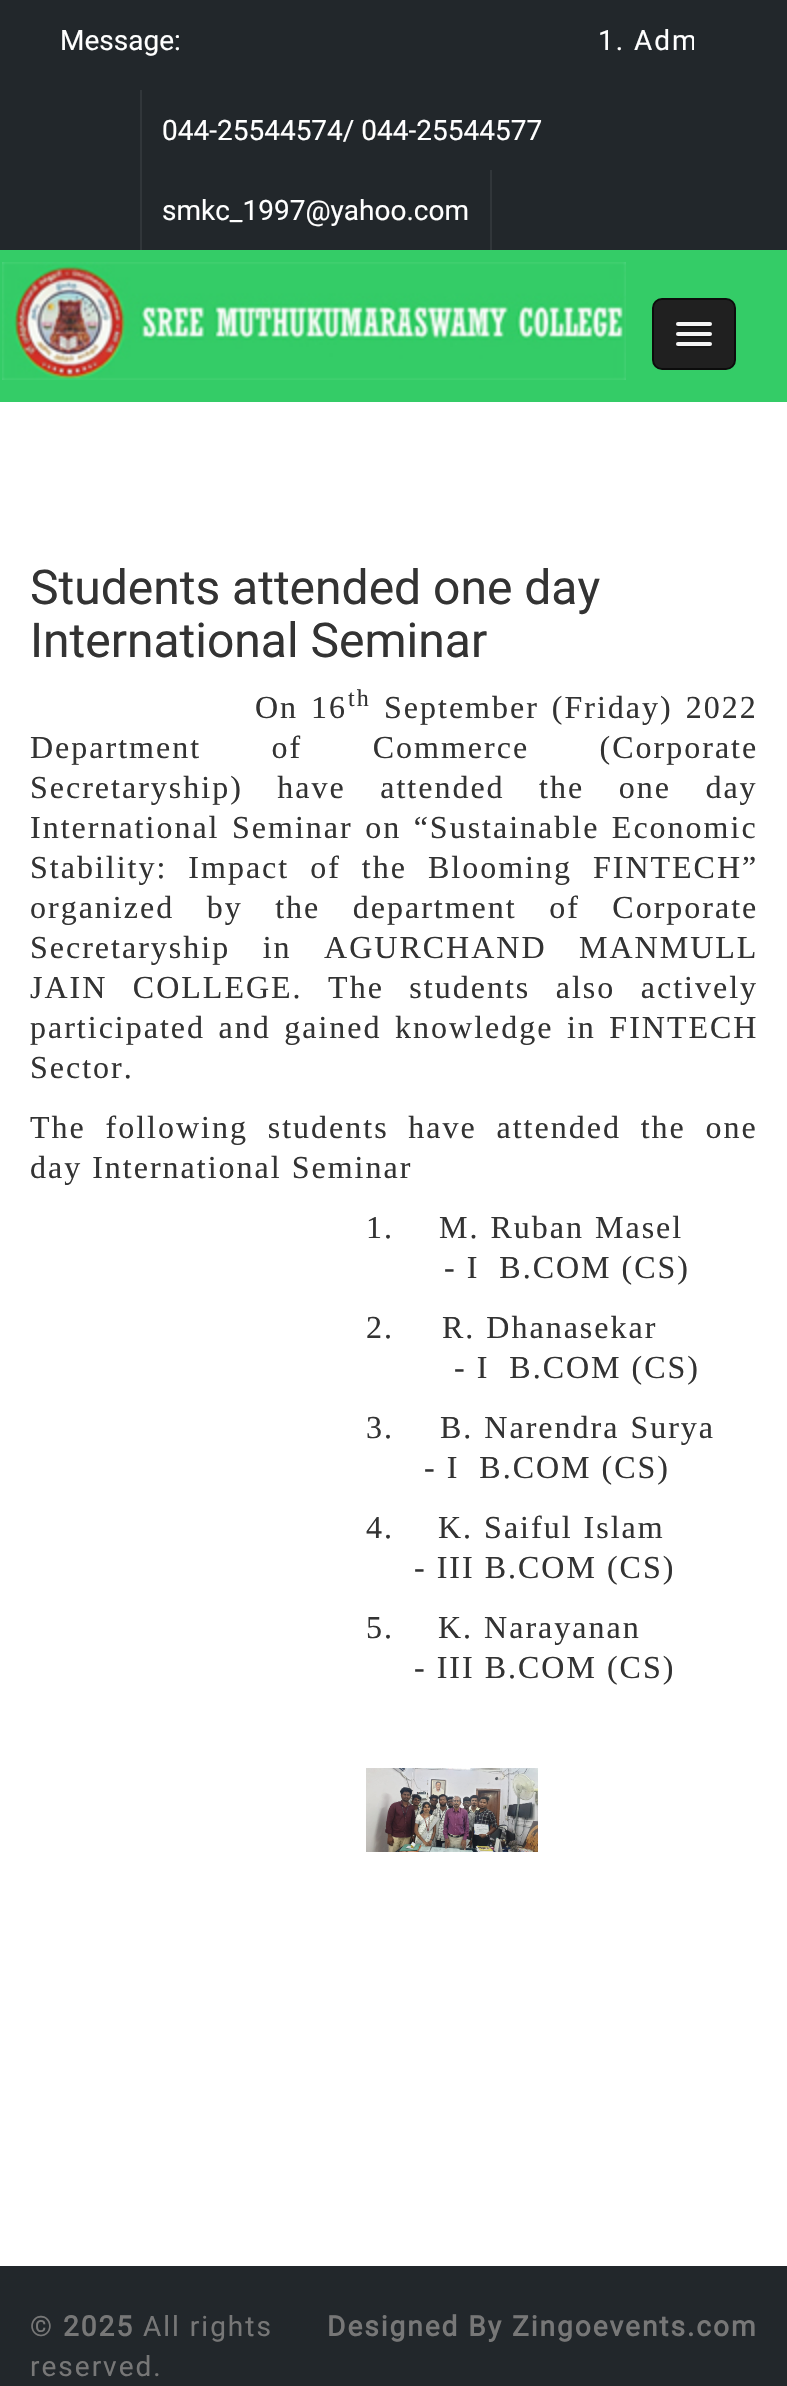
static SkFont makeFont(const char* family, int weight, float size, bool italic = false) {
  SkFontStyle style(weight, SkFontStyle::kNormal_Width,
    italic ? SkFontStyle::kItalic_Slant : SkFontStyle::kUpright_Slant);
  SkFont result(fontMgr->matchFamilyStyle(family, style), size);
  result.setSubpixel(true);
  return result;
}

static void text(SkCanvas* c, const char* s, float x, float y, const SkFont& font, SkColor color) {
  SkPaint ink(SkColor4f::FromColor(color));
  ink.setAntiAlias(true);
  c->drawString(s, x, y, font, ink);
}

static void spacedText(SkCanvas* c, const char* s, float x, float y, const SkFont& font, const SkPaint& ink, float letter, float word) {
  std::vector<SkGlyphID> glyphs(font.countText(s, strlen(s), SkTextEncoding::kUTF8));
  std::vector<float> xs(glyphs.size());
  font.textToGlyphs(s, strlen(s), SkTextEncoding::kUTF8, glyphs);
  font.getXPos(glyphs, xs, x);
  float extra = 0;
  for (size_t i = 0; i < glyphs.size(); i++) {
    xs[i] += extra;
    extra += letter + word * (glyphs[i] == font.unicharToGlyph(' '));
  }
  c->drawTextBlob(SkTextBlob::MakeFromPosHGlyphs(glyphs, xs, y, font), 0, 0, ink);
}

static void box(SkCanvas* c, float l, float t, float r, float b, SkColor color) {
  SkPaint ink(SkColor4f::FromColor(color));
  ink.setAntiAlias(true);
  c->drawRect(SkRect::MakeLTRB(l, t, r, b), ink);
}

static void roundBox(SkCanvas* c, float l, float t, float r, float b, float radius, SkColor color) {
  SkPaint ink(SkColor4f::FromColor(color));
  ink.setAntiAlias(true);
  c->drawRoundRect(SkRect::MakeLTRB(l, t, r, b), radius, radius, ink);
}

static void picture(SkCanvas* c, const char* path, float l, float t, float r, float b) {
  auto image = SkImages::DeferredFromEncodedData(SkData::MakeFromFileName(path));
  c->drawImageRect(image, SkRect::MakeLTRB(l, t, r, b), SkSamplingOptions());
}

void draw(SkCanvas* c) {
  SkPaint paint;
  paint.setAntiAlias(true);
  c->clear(0xffffffff);
  box(c, 0, 0, 787, 250, 0xff22272b);
  SkFont face1 = makeFont("Roboto", 400, 28);
  text(c, "Message:", 60, 50, face1, 0xffffffff);
  c->save();
  c->clipRect(SkRect::MakeLTRB(228, 20, 694, 80));
  paint.setColor(0xffffffff);
  spacedText(c, "1. Adm", 598, 50, face1, paint, 2, 0);
  c->restore();
  box(c, 140, 90, 142, 250, 0xff31363a);
  text(c, "044-25544574/ 044-25544577", 162, 140, face1, 0xffffffff);
  box(c, 490, 170, 492, 250, 0xff31363a);
  text(c, "smkc_1997@yahoo.com", 162, 220, face1, 0xffffffff);
  box(c, 0, 250, 787, 402, 0xff34cc67);
  picture(c, "img_01.png", 2, 262, 626, 380);
  paint.setColor(0xff202020);
  c->drawRoundRect(SkRect::MakeLTRB(653, 299, 735, 369), 9, 9, paint);
  paint.setStyle(SkPaint::kStroke_Style);
  paint.setStrokeWidth(2);
  paint.setColor(0xff0c0c0c);
  c->drawRoundRect(SkRect::MakeLTRB(653, 299, 735, 369), 9, 9, paint);
  paint.setStyle(SkPaint::kFill_Style);
  paint.setColor(0xff181818);
  c->drawPath(SkPathBuilder().moveTo(676.5f, 325).cubicTo(674, 329, 683, 328, 683.5f, 328).lineTo(704.5f, 328).cubicTo(705, 328, 714, 329, 711.5f, 325).cubicTo(711.5f, 325.5f, 710.5f, 326, 710, 326).lineTo(678, 326).cubicTo(677.5f, 326, 676.5f, 325.5f, 676.5f, 325).close().detach(), paint);
  roundBox(c, 676, 322, 712, 326, 2, 0xfff5f5f5);
  c->drawPath(SkPathBuilder().moveTo(676.5f, 335).cubicTo(674, 339, 683, 338, 683.5f, 338).lineTo(704.5f, 338).cubicTo(705, 338, 714, 339, 711.5f, 335).cubicTo(711.5f, 335.5f, 710.5f, 336, 710, 336).lineTo(678, 336).cubicTo(677.5f, 336, 676.5f, 335.5f, 676.5f, 335).close().detach(), paint);
  roundBox(c, 676, 332, 712, 336, 2, 0xfff5f5f5);
  c->drawPath(SkPathBuilder().moveTo(676.5f, 345).cubicTo(674, 349, 683, 348, 683.5f, 348).lineTo(704.5f, 348).cubicTo(705, 348, 714, 349, 711.5f, 345).cubicTo(711.5f, 345.5f, 710.5f, 346, 710, 346).lineTo(678, 346).cubicTo(677.5f, 346, 676.5f, 345.5f, 676.5f, 345).close().detach(), paint);
  roundBox(c, 676, 342, 712, 346, 2, 0xfff5f5f5);
  SkFont face2 = makeFont("Roboto", 400, 48);
  text(c, "Students attended one day", 30, 604, face2, 0xff333333);
  text(c, "International Seminar", 30, 657, face2, 0xff333333);
  SkFont face3 = makeFont("Liberation Serif", 400, 32);
  paint.setColor(0xff333333);
  spacedText(c, "On 16", 255, 718, face3, paint, 2, 3);
  SkFont face4 = makeFont("Liberation Serif", 400, 24);
  spacedText(c, "th", 348, 706, face4, paint, 2, 0);
  spacedText(c, "September (Friday) 2022", 384, 718, face3, paint, 2, 3);
  spacedText(c, "Department of Commerce (Corporate", 30, 758, face3, paint, 2, 60.5f);
  spacedText(c, "Secretaryship) have attended the one day", 30, 798, face3, paint, 2, 24.5f);
  spacedText(c, "International Seminar on “Sustainable Economic", 30, 838, face3, paint, 2, 2.5f);
  spacedText(c, "Stability: Impact of the Blooming FINTECH”", 30, 878, face3, paint, 2, 11);
  spacedText(c, "organized by the department of Corporate", 30, 918, face3, paint, 2, 22.5f);
  spacedText(c, "Secretaryship in AGURCHAND MANMULL", 30, 958, face3, paint, 2, 22.5f);
  spacedText(c, "JAIN COLLEGE. The students also actively", 30, 998, face3, paint, 2, 15.5f);
  spacedText(c, "participated and gained knowledge in FINTECH", 30, 1038, face3, paint, 2, 3.5f);
  spacedText(c, "Sector.", 30, 1078, face3, paint, 2, 0);
  spacedText(c, "The following students have attended the one", 30, 1138, face3, paint, 2, 9.75f);
  spacedText(c, "day International Seminar", 30, 1178, face3, paint, 2, 0);
  spacedText(c, "1.", 366, 1238, face3, paint, 2, 0);
  spacedText(c, "M. Ruban Masel", 439, 1238, face3, paint, 2, 1);
  spacedText(c, "- I  B.COM (CS)", 444, 1278, face3, paint, 2, 0);
  spacedText(c, "2.", 366, 1338, face3, paint, 2, 0);
  spacedText(c, "R. Dhanasekar", 442, 1338, face3, paint, 2, 1);
  spacedText(c, "- I  B.COM (CS)", 454, 1378, face3, paint, 2, 0);
  spacedText(c, "3.", 366, 1438, face3, paint, 2, 0);
  spacedText(c, "B. Narendra Surya", 440, 1438, face3, paint, 2, 1);
  spacedText(c, "- I  B.COM (CS)", 424, 1478, face3, paint, 2, 0);
  spacedText(c, "4.", 366, 1538, face3, paint, 2, 0);
  spacedText(c, "K. Saiful Islam", 438, 1538, face3, paint, 2, 1);
  spacedText(c, "- III B.COM (CS)", 414, 1578, face3, paint, 2, 0);
  spacedText(c, "5.", 366, 1638, face3, paint, 2, 0);
  spacedText(c, "K. Narayanan", 438, 1638, face3, paint, 2, 1);
  spacedText(c, "- III B.COM (CS)", 414, 1678, face3, paint, 2, 0);
  picture(c, "img_02.png", 366, 1768, 538, 1852);
  box(c, 0, 2266, 787, 2386, 0xff22272b);
  paint.setColor(0xff777777);
  spacedText(c, "©", 30, 2336, face1, paint, 2, 0);
  SkFont face5 = makeFont("Roboto", 700, 28);
  spacedText(c, "2025", 63, 2336, face5, paint, 2, 0);
  spacedText(c, "All rights", 143, 2336, face1, paint, 2, 0);
  spacedText(c, "reserved.", 30, 2376, face1, paint, 2, 0);
  spacedText(c, "Designed By Zingoevents.com", 327, 2336, face5, paint, 2, 0);
}
